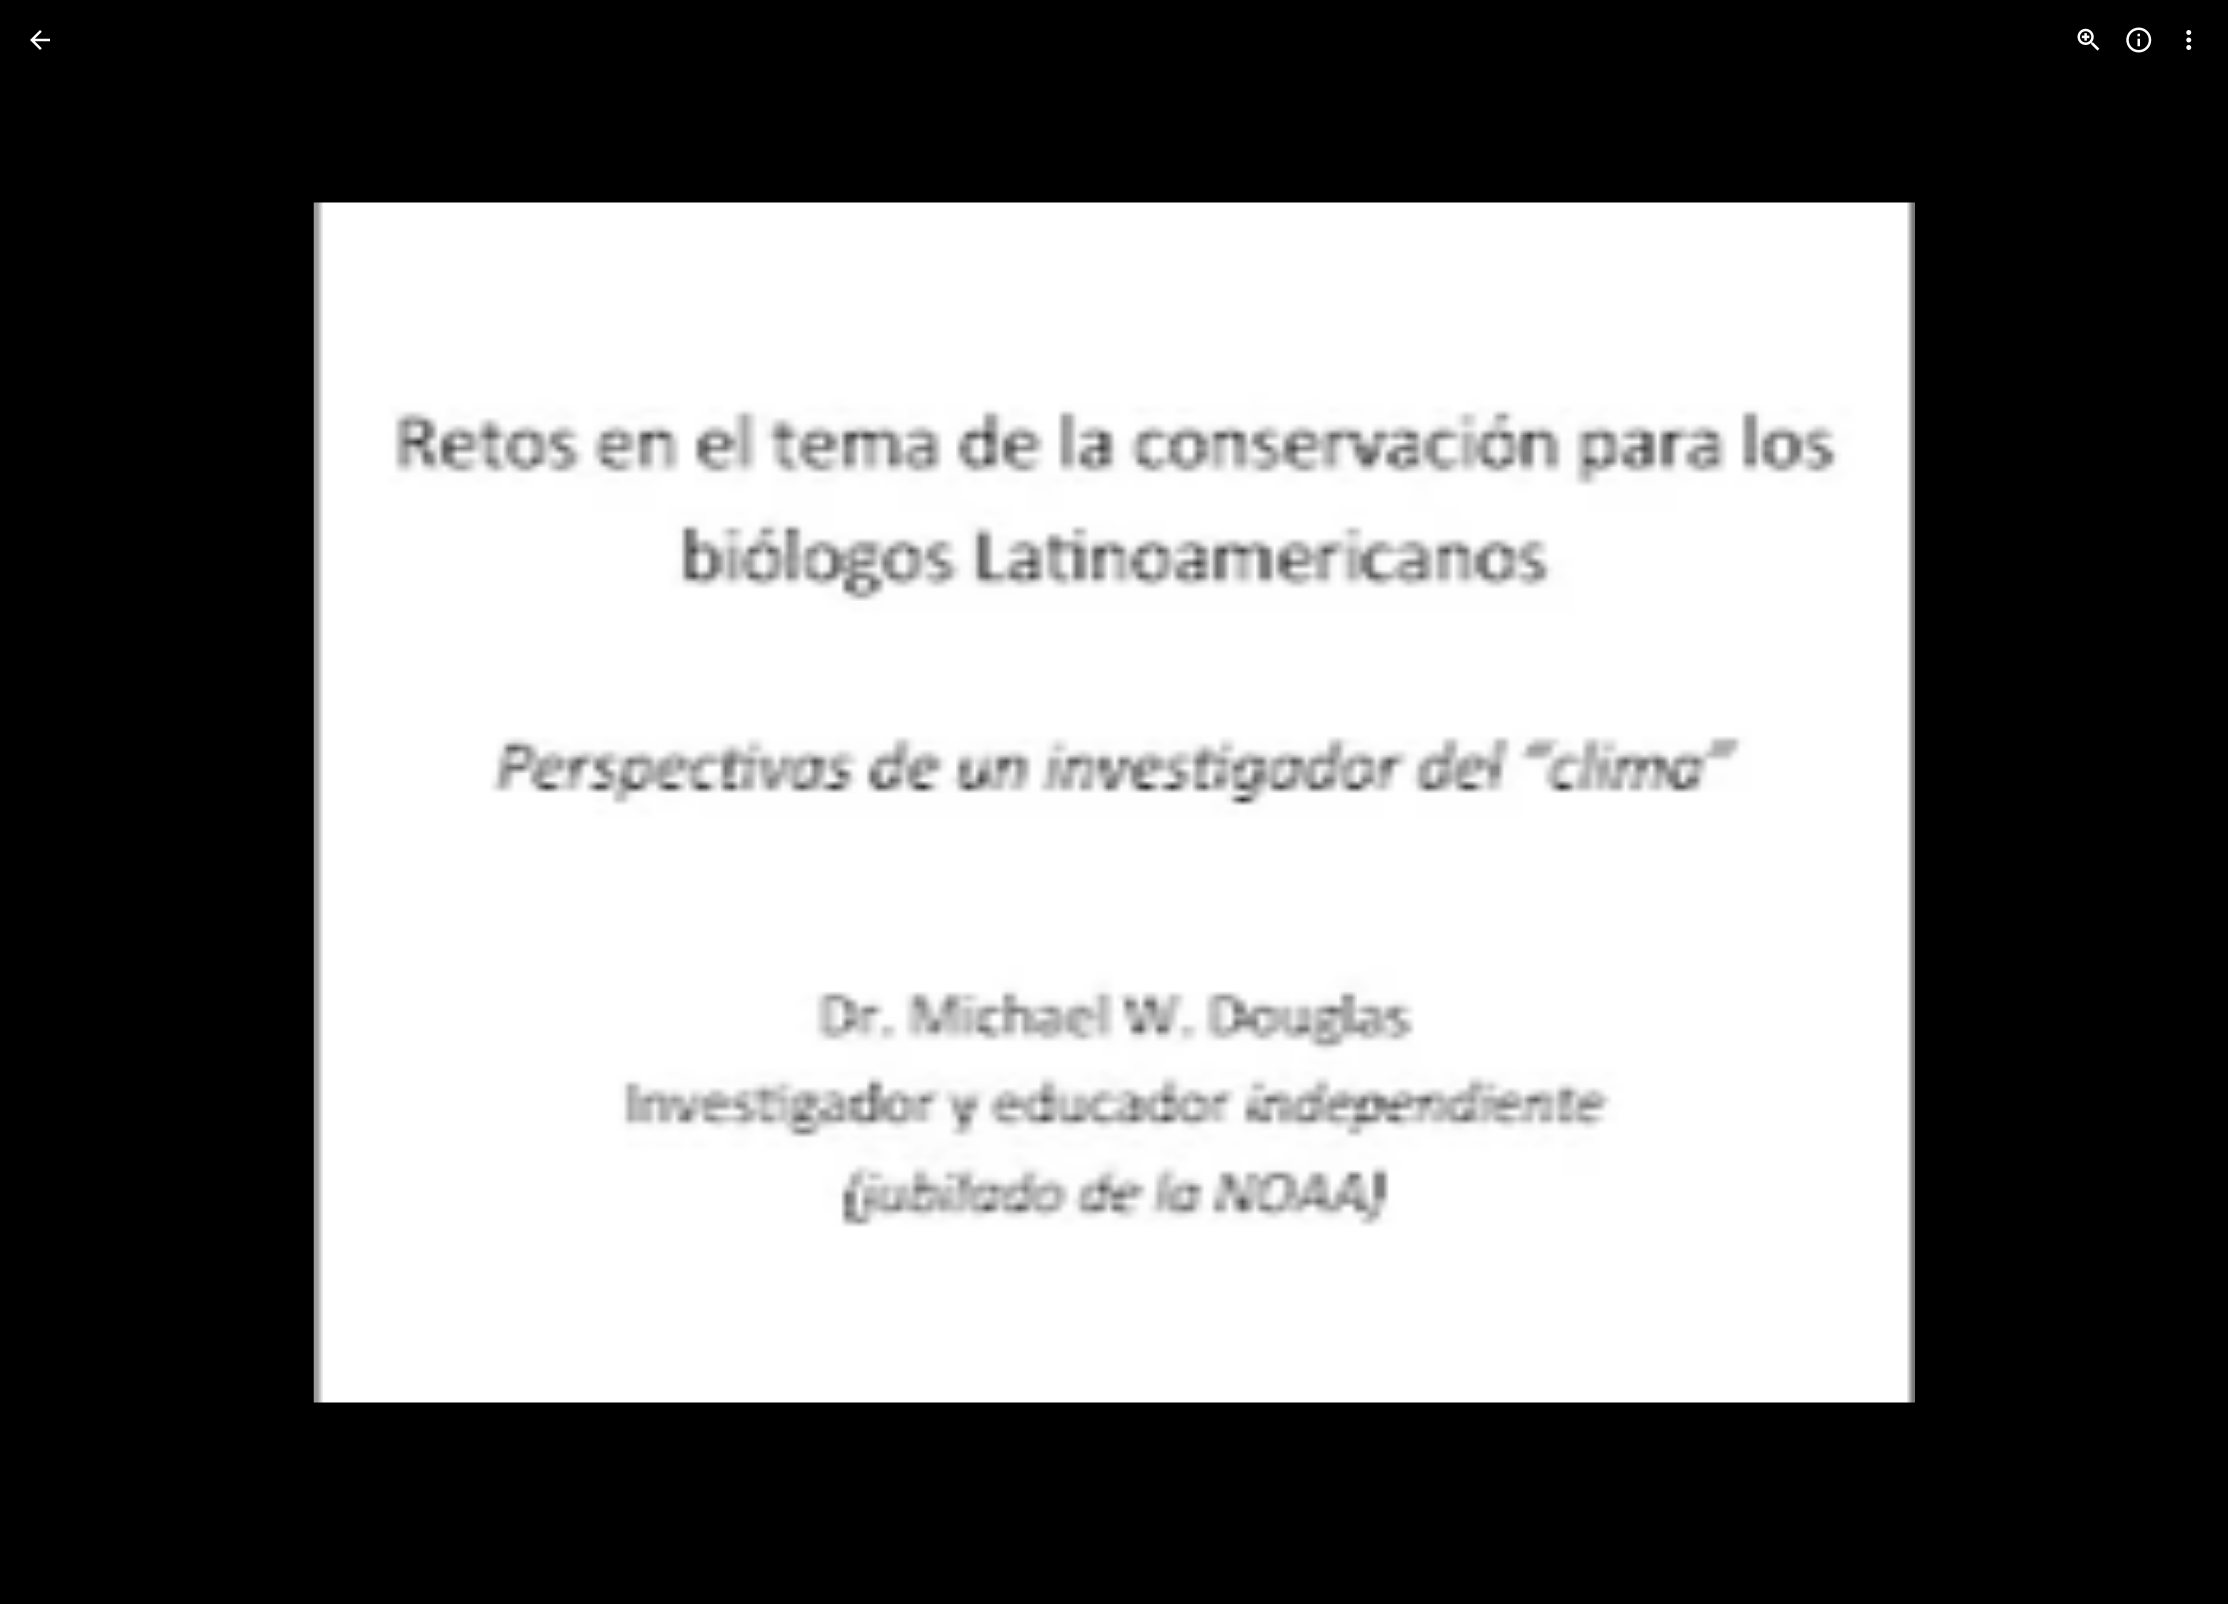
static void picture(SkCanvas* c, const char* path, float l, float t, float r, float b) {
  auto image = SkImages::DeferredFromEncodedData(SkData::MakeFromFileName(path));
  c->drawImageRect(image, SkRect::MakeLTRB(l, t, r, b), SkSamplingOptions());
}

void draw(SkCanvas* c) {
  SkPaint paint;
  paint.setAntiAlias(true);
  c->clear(0xff000000);
  picture(c, "img_01.png", 30, 30, 50, 50);
  picture(c, "img_02.png", 2077, 28, 2100, 51);
  picture(c, "img_03.png", 2126, 27, 2152, 53);
  picture(c, "img_04.png", 2186, 30, 2192, 50);
  picture(c, "img_05.png", 313, 202, 1915, 1403);
}
